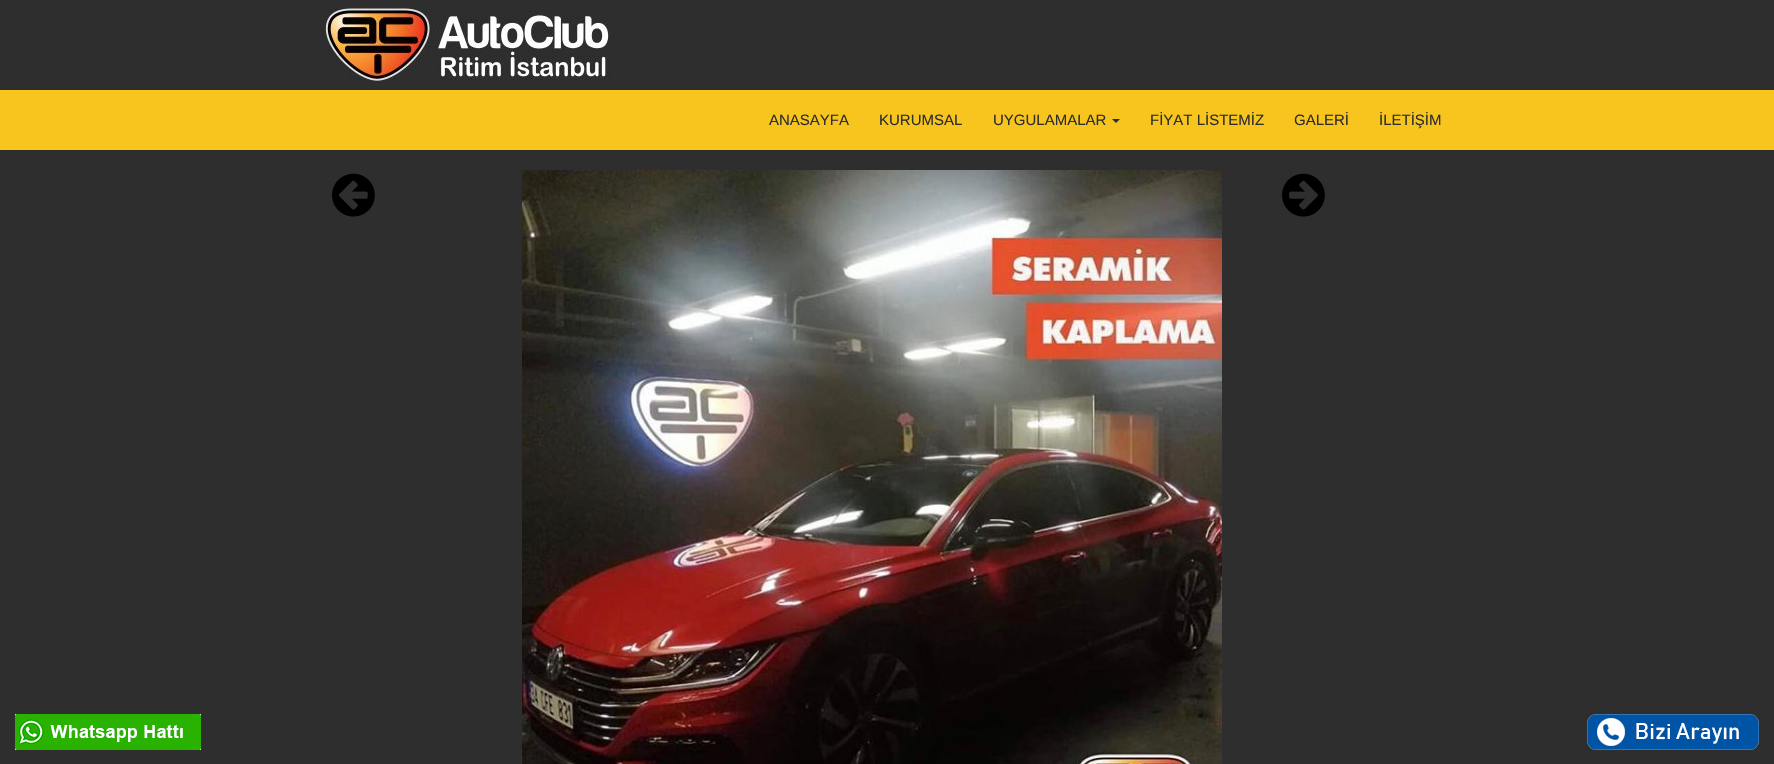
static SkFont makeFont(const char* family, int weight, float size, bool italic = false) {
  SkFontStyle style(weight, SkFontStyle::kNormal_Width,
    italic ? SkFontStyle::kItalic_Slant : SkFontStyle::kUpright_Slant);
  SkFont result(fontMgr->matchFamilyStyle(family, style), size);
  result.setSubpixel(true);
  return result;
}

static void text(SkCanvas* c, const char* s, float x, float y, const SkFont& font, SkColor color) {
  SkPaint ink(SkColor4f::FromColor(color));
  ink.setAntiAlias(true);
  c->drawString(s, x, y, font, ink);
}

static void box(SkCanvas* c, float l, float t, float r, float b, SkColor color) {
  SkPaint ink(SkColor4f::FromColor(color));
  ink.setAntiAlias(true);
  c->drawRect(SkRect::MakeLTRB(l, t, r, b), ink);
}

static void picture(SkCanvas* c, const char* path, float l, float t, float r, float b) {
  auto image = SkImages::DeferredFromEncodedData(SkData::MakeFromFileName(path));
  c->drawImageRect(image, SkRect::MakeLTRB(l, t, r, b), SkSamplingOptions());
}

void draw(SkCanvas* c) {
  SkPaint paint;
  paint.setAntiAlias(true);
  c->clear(0xff2e2e2e);
  picture(c, "img_01.png", 317, 0, 613, 84);
  box(c, 0, 90, 1774, 150, 0xfff7c51e);
  SkFont face1 = makeFont("Liberation Sans", 400, 15);
  text(c, "ANASAYFA", 769, 125, face1, 0xff2e2e2e);
  text(c, "KURUMSAL", 879, 125, face1, 0xff2e2e2e);
  text(c, "UYGULAMALAR", 993, 125, face1, 0xff2e2e2e);
  paint.setColor(0xff2e2e2e);
  c->drawPath(SkPathBuilder().moveTo(1112, 119).lineTo(1120, 119).lineTo(1116, 123).close().detach(), paint);
  text(c, "FİYAT LİSTEMİZ", 1150, 125, face1, 0xff2e2e2e);
  text(c, "GALERİ", 1294, 125, face1, 0xff2e2e2e);
  text(c, "İLETİŞİM", 1379, 125, face1, 0xff2e2e2e);
  picture(c, "img_02.png", 332, 173, 375, 217);
  picture(c, "img_03.png", 522, 170, 1222, 764);
  picture(c, "img_04.png", 1282, 173, 1325, 217);
  picture(c, "img_05.png", 15, 714, 201, 750);
  picture(c, "img_06.png", 1587, 714, 1759, 750);
}
